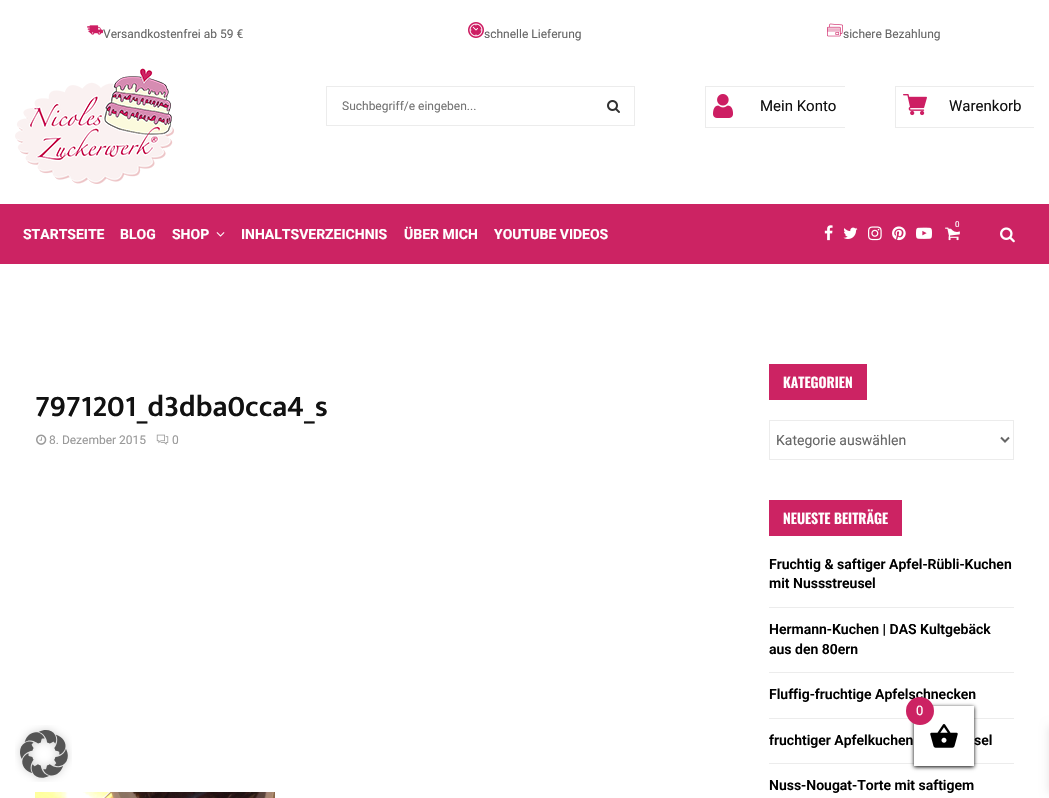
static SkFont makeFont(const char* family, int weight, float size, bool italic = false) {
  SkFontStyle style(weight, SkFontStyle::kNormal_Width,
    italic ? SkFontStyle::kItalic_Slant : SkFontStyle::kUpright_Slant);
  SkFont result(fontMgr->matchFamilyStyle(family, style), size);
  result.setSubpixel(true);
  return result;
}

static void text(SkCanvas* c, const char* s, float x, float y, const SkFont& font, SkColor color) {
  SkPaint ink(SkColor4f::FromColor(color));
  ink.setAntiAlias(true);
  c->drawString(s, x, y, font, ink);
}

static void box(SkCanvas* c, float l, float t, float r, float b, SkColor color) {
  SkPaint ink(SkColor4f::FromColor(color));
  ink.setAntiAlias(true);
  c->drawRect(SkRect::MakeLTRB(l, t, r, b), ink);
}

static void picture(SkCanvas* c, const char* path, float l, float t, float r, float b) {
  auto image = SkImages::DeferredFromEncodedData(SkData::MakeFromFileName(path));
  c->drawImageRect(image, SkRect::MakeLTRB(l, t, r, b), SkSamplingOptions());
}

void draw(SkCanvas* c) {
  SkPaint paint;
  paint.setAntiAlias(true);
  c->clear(0xffffffff);
  picture(c, "img_01.png", 87, 25, 103, 35);
  SkFont face1 = makeFont("Roboto", 400, 12);
  text(c, "Versandkostenfrei ab 59 €", 103, 38, face1, 0xff666666);
  picture(c, "img_02.png", 468, 22, 484, 38);
  text(c, "schnelle Lieferung", 484, 38, face1, 0xff666666);
  picture(c, "img_03.png", 827, 23, 843, 37);
  text(c, "sichere Bezahlung", 843, 38, face1, 0xff666666);
  picture(c, "img_04.png", 15, 68, 174, 184);
  paint.setStyle(SkPaint::kStroke_Style);
  paint.setStrokeWidth(1);
  paint.setColor(0xffececec);
  c->drawRect(SkRect::MakeLTRB(326.5f, 86.5f, 634.5f, 125.5f), paint);
  text(c, "Suchbegriff/e eingeben...", 342, 110, face1, 0xff757575);
  picture(c, "img_05.png", 607, 100, 620, 113);
  c->save();
  c->clipRect(SkRect::MakeLTRB(685, 66, 845, 148));
  c->drawRect(SkRect::MakeLTRB(705.5f, 86.5f, 854.5f, 127.5f), paint);
  c->restore();
  picture(c, "img_06.png", 713, 94, 733, 118);
  SkFont face2 = makeFont("Roboto", 400, 15);
  text(c, "Mein Konto", 760, 111, face2, 0xff111111);
  c->save();
  c->clipRect(SkRect::MakeLTRB(875, 66, 1034, 148));
  c->drawRect(SkRect::MakeLTRB(895.5f, 86.5f, 1044.5f, 127.5f), paint);
  c->restore();
  picture(c, "img_07.png", 903, 94, 927, 116);
  text(c, "Warenkorb", 949, 111, face2, 0xff111111);
  box(c, 0, 204, 1049, 264, 0xffcc2363);
  picture(c, "img_08.png", 824, 225, 833, 241);
  picture(c, "img_09.png", 843, 227, 858, 239);
  picture(c, "img_10.png", 868, 226, 882, 241);
  picture(c, "img_11.png", 892, 226, 906, 241);
  picture(c, "img_12.png", 916, 227, 932, 239);
  picture(c, "img_13.png", 945, 227, 960, 241);
  paint.setStyle(SkPaint::kFill_Style);
  paint.setColor(0xffcc2363);
  c->drawCircle(957, 225, 7, paint);
  SkFont face3 = makeFont("Roboto", 400, 8);
  text(c, "0", 955, 227, face3, 0xffffffff);
  picture(c, "img_14.png", 1000, 227, 1015, 243);
  SkFont face4 = makeFont("Roboto", 700, 14);
  text(c, "STARTSEITE", 23, 239, face4, 0xffffffff);
  text(c, "BLOG", 120, 239, face4, 0xffffffff);
  text(c, "SHOP", 172, 239, face4, 0xffffffff);
  picture(c, "img_15.png", 216, 232, 225, 237);
  text(c, "INHALTSVERZEICHNIS", 241, 239, face4, 0xffffffff);
  text(c, "ÜBER MICH", 404, 239, face4, 0xffffffff);
  text(c, "YOUTUBE VIDEOS", 494, 239, face4, 0xffffffff);
  SkFont face5 = makeFont("Mukta Vaani", 600, 30);
  text(c, "7971201_d3dba0cca4_s", 35, 416, face5, 0xff111111);
  picture(c, "img_16.png", 36, 434, 47, 445);
  text(c, "8. Dezember 2015", 49, 444, face1, 0xff999999);
  picture(c, "img_17.png", 156, 434, 169, 445);
  text(c, "0", 172, 444, face1, 0xff999999);
  picture(c, "img_18.png", 35, 792, 275, 798);
  box(c, 769, 364, 867, 400, 0xffcc2363);
  SkFont face6 = makeFont("Oswald", 600, 14);
  text(c, "KATEGORIEN", 783, 388, face6, 0xffffffff);
  paint.setStyle(SkPaint::kStroke_Style);
  paint.setColor(0xffececec);
  c->drawRect(SkRect::MakeLTRB(769.5f, 420.5f, 1013.5f, 459.5f), paint);
  paint.setStrokeWidth(2);
  paint.setColor(0xff666666);
  c->drawPath(SkPathBuilder().moveTo(1001, 437.5f).lineTo(1005, 441.5f).lineTo(1009, 437.5f).detach(), paint);
  SkFont face7 = makeFont("Roboto", 400, 14);
  text(c, "Kategorie auswählen", 776, 445, face7, 0xff666666);
  box(c, 769, 500, 902, 536, 0xffcc2363);
  text(c, "NEUESTE BEITRÄGE", 783, 524, face6, 0xffffffff);
  box(c, 769, 607, 1014, 608, 0xffececec);
  SkFont face8 = makeFont("Roboto", 600, 14);
  text(c, "Fruchtig & saftiger Apfel-Rübli-Kuchen", 769, 569, face8, 0xff000000);
  text(c, "mit Nussstreusel", 769, 588, face8, 0xff000000);
  box(c, 769, 672, 1014, 673, 0xffececec);
  text(c, "Hermann-Kuchen | DAS Kultgebäck", 769, 634, face8, 0xff000000);
  text(c, "aus den 80ern", 769, 654, face8, 0xff000000);
  box(c, 769, 718, 1014, 719, 0xffececec);
  text(c, "Fluffig-fruchtige Apfelschnecken", 769, 699, face8, 0xff000000);
  box(c, 769, 763, 1014, 764, 0xffececec);
  text(c, "fruchtiger Apfelkuchen", 769, 745, face8, 0xff000000);
  text(c, "sel", 974, 745, face8, 0xff000000);
  text(c, "Nuss-Nougat-Torte mit saftigem", 769, 790, face8, 0xff000000);
  paint.setStyle(SkPaint::kFill_Style);
  paint.setColor(0xff000000);
  paint.setMaskFilter(SkMaskFilter::MakeBlur(kNormal_SkBlurStyle, 2));
  c->drawRect(SkRect::MakeLTRB(914, 707, 974, 767), paint);
  paint.setMaskFilter(nullptr);
  box(c, 914, 706, 974, 766, 0xffffffff);
  picture(c, "img_19.png", 930, 724, 958, 748);
  paint.setColor(0xffcc2363);
  c->drawCircle(920, 711, 14, paint);
  SkFont face9 = makeFont("Roboto", 400, 13);
  text(c, "0", 916, 715, face9, 0xffffffff);
  paint.setColor(0x1a000000);
  paint.setMaskFilter(SkMaskFilter::MakeBlur(kNormal_SkBlurStyle, 5));
  c->drawRect(SkRect::MakeLTRB(1049, 726, 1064, 793), paint);
  paint.setMaskFilter(nullptr);
  picture(c, "img_20.png", 15, 725, 72, 782);
}
